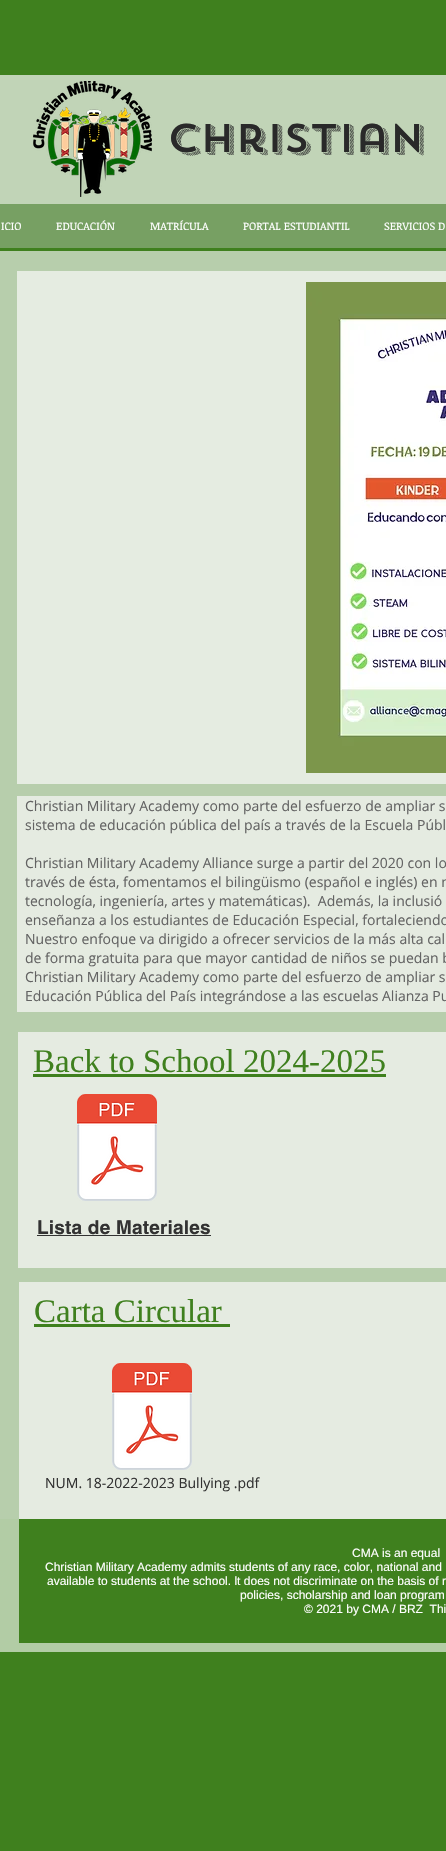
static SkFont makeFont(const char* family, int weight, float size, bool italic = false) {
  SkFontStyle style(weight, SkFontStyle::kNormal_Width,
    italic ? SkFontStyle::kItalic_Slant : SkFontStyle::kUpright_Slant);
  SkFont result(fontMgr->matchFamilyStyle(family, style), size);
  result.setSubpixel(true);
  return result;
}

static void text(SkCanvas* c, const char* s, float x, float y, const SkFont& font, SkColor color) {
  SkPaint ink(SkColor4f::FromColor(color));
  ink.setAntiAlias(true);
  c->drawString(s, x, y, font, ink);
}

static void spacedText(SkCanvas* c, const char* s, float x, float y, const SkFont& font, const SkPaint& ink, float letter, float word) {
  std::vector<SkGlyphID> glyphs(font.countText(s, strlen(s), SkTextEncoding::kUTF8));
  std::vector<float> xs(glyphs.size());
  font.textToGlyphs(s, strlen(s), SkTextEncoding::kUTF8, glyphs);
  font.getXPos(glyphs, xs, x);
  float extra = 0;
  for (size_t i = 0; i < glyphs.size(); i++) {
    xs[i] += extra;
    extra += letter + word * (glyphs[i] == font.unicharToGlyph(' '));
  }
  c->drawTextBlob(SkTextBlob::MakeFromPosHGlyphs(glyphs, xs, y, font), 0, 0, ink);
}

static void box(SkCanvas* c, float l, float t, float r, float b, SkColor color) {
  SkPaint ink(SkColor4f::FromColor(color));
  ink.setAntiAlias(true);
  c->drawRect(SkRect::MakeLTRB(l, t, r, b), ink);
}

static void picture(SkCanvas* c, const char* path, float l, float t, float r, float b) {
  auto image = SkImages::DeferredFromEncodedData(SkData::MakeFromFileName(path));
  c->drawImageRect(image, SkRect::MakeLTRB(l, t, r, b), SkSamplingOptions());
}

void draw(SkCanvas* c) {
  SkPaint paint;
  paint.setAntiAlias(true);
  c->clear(0xff3f801e);
  box(c, 0, 75, 446, 204, 0xffc1d4b7);
  picture(c, "img_01.png", 33, 81, 152, 197);
  SkFont face1 = makeFont("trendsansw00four", 500, 40);
  text(c, "Christian", 167, 152, face1, 0xff292929);
  box(c, 0, 204, 446, 248, 0xff77a063);
  SkFont face2 = makeFont("Noticia Text", 400, 11);
  text(c, "ICIO", 1, 230, face2, 0xffffffff);
  text(c, "EDUCACIÓN", 56, 230, face2, 0xffffffff);
  text(c, "MATRÍCULA", 150, 230, face2, 0xffffffff);
  text(c, "PORTAL ESTUDIANTIL", 243, 230, face2, 0xffffffff);
  text(c, "SERVICIOS D", 384, 230, face2, 0xffffffff);
  box(c, 0, 251, 446, 1519, 0xffb7ceac);
  box(c, 19, 1282, 446, 1519, 0xffe5ebe1);
  box(c, 17, 271, 446, 784, 0xffe5ece1);
  picture(c, "img_02.png", 306, 282, 446, 773);
  box(c, 17, 796, 446, 1012, 0xffe5ebe1);
  SkFont face3 = makeFont("Open Sans", 400, 14);
  text(c, "Christian Military Academy como parte del esfuerzo de ampliar s", 25, 811, face3, 0xff636363);
  text(c, "sistema de educación pública del país a través de la Escuela Públ", 25, 830, face3, 0xff636363);
  text(c, "Christian Military Academy Alliance surge a partir del 2020 con lo", 25, 868, face3, 0xff636363);
  text(c, "través de ésta, fomentamos el bilingüismo (español e inglés) en n", 25, 887, face3, 0xff636363);
  text(c, "tecnología, ingeniería, artes y matemáticas).  Además, la inclusió", 25, 906, face3, 0xff636363);
  text(c, "enseñanza a los estudiantes de Educación Especial, fortaleciendo", 25, 925, face3, 0xff636363);
  text(c, "Nuestro enfoque va dirigido a ofrecer servicios de la más alta cal", 25, 944, face3, 0xff636363);
  text(c, "de forma gratuita para que mayor cantidad de niños se puedan b", 25, 963, face3, 0xff636363);
  text(c, "Christian Military Academy como parte del esfuerzo de ampliar s", 25, 982, face3, 0xff636363);
  text(c, "Educación Pública del País integrándose a las escuelas Alianza Pu", 25, 1001, face3, 0xff636363);
  box(c, 18, 1032, 446, 1268, 0xffe5ebe1);
  SkFont face4 = makeFont("Liberation Serif", 400, 33);
  text(c, "Back to School 2024-2025", 33, 1072, face4, 0xff3f801e);
  box(c, 33, 1074, 386, 1077, 0xff3f801e);
  picture(c, "img_03.png", 77, 1094, 157, 1201);
  SkFont face5 = makeFont("helvetica", 700, 19);
  paint.setColor(0xff323232);
  spacedText(c, "Lista de Materiales", 37, 1234, face5, paint, 0.2f, 0);
  box(c, 37, 1235, 211, 1236, 0xff323232);
  text(c, "Carta Circular", 34, 1322, face4, 0xff3f801e);
  box(c, 34, 1324, 230, 1327, 0xff3f801e);
  picture(c, "img_04.png", 112, 1363, 192, 1470);
  text(c, "NUM. 18-2022-2023 Bullying .pdf", 45, 1488, face3, 0xff323232);
  box(c, 0, 1519, 446, 1652, 0xffb2cca5);
  box(c, 19, 1519, 446, 1643, 0xff3f801e);
  SkFont face6 = makeFont("Liberation Sans", 400, 12);
  text(c, "CMA is an equal", 352, 1557, face6, 0xffffffff);
  text(c, "Christian Military Academy admits students of any race, color, national and", 45, 1571, face6, 0xffffffff);
  text(c, "available to students at the school. lt does not discriminate on the basis of r", 47, 1585, face6, 0xffffffff);
  text(c, "policies, scholarship and loan program", 240, 1599, face6, 0xffffffff);
  text(c, "© 2021 by CMA / BRZ  Thi", 304, 1613, face6, 0xffffffff);
}
